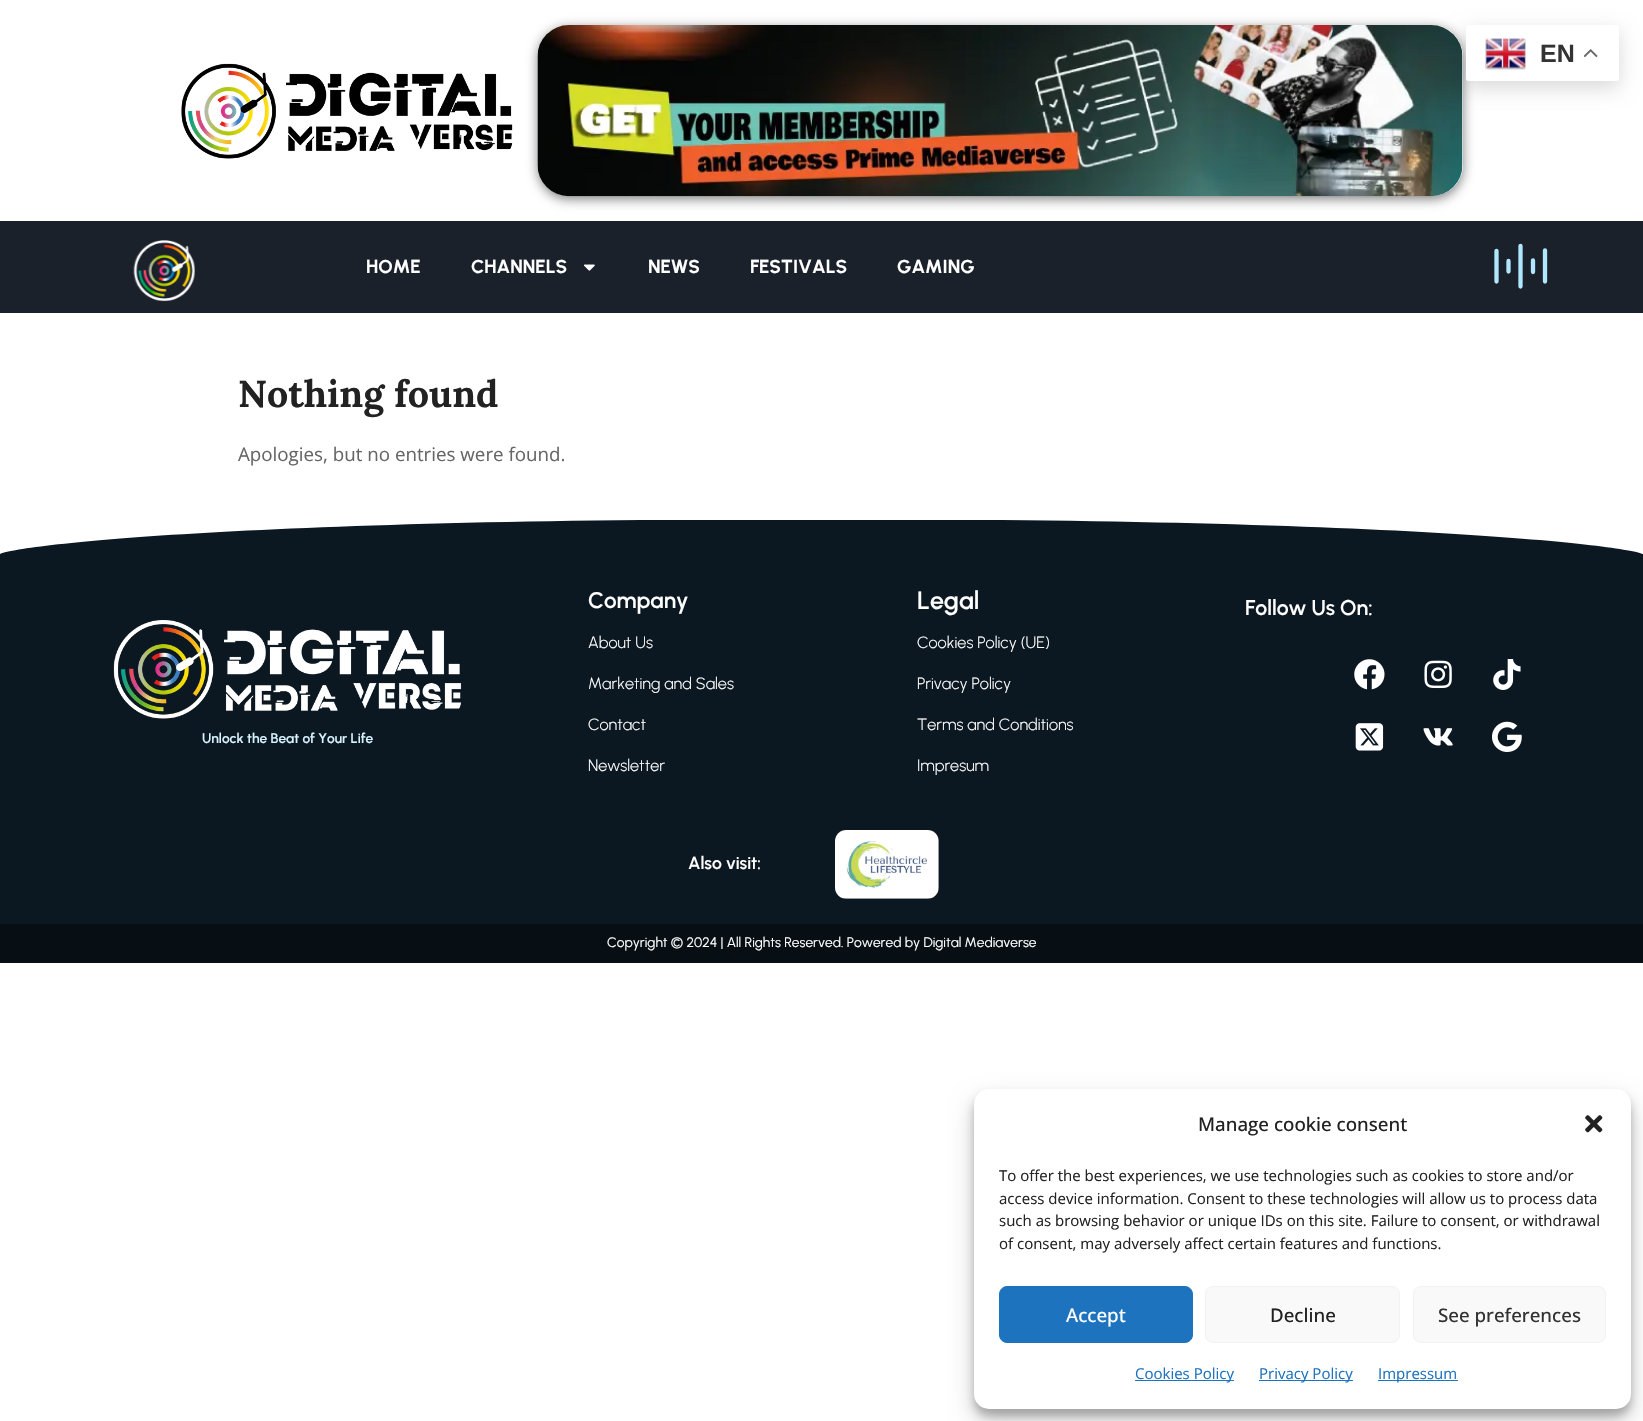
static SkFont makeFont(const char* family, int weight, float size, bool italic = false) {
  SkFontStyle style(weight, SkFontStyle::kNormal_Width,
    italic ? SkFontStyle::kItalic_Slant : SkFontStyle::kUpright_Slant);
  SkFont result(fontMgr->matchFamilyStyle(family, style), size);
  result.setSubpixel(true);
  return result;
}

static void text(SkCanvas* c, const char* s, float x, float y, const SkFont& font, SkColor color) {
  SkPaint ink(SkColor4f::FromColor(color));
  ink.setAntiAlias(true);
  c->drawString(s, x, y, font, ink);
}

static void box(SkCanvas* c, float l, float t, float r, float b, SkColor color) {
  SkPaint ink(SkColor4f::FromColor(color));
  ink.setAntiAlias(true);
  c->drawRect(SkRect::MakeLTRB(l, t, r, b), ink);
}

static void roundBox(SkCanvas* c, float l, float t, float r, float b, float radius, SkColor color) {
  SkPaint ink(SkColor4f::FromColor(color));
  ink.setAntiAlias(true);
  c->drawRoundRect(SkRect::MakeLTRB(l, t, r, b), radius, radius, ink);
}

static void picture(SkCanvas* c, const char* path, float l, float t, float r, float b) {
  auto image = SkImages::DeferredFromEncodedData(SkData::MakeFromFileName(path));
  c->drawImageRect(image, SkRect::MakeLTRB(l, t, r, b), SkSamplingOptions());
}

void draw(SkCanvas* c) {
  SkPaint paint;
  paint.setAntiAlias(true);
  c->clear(0xffffffff);
  c->save();
  c->clipPath(SkPathBuilder(SkPathFillType::kEvenOdd).moveTo(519, 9).lineTo(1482, 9).lineTo(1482, 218).lineTo(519, 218).close().moveTo(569, 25).lineTo(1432, 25).cubicTo(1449, 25, 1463, 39, 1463, 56).lineTo(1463, 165).cubicTo(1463, 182, 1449, 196, 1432, 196).lineTo(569, 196).cubicTo(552, 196, 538, 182, 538, 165).lineTo(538, 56).cubicTo(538, 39, 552, 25, 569, 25).close().detach(), true);
  paint.setColor(0x80000000);
  paint.setMaskFilter(SkMaskFilter::MakeBlur(kNormal_SkBlurStyle, 6));
  c->drawRoundRect(SkRect::MakeLTRB(538, 28, 1463, 199), 31, 31, paint);
  paint.setMaskFilter(nullptr);
  c->restore();
  picture(c, "img_04.png", 537, 25, 1463, 197);
  paint.setColor(0x26000000);
  paint.setMaskFilter(SkMaskFilter::MakeBlur(kNormal_SkBlurStyle, 9.5f));
  c->drawRoundRect(SkRect::MakeLTRB(1466, 31, 1619, 88), 2.5f, 2.5f, paint);
  paint.setMaskFilter(nullptr);
  roundBox(c, 1466, 25, 1619, 81, 2.5f, 0xffffffff);
  picture(c, "img_01.png", 1485, 38, 1526, 70);
  SkFont face1 = makeFont("Liberation Sans", 700, 25);
  text(c, "EN", 1540, 62, face1, 0xff333333);
  picture(c, "img_02.png", 1584, 49, 1598, 58);
  picture(c, "img_03.png", 181, 63, 513, 159);
  box(c, 0, 221, 1643, 313, 0xff1a212b);
  picture(c, "img_05.png", 133, 240, 195, 302);
  SkFont face2 = makeFont("Urbanist", 700, 18.75f);
  text(c, "HOME", 366, 273, face2, 0xffffffff);
  text(c, "CHANNELS", 471, 273, face2, 0xffffffff);
  picture(c, "img_06.png", 584, 264, 595, 271);
  text(c, "NEWS", 648, 273, face2, 0xffffffff);
  text(c, "FESTIVALS", 750, 273, face2, 0xffffffff);
  text(c, "GAMING", 897, 273, face2, 0xffffffff);
  paint.setStyle(SkPaint::kStroke_Style);
  paint.setStrokeWidth(4.3f);
  paint.setStrokeCap(SkPaint::kRound_Cap);
  paint.setStrokeJoin(SkPaint::kRound_Join);
  paint.setColor(0xffb0e7fd);
  c->drawPath(SkPathBuilder().moveTo(1496.5f, 251).lineTo(1496.5f, 281.5f).moveTo(1508.5f, 261).lineTo(1508.5f, 271.5f).moveTo(1520.5f, 246).lineTo(1520.5f, 286.5f).moveTo(1533, 260.5f).lineTo(1533, 272).moveTo(1545, 250.5f).lineTo(1545, 281.5f).detach(), paint);
  SkFont face3 = makeFont("Lora", 700, 37.5f);
  text(c, "Nothing found", 238, 407, face3, 0xff222222);
  SkFont face4 = makeFont("Open Sans", 400, 18.75f);
  text(c, "Apologies, but no entries were found.", 238, 461, face4, 0xff666666);
  box(c, 0, 520, 1643, 924, 0xff0c1821);
  c->save();
  c->clipRect(SkRect::MakeLTRB(0, 519, 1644, 556));
  paint.setStyle(SkPaint::kFill_Style);
  paint.setColor(0xffffffff);
  c->drawPath(SkPathBuilder().moveTo(821, 519).cubicTo(1435, 519, 1643, 548, 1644, 555).lineTo(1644, 518).lineTo(-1, 518).lineTo(-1, 555).cubicTo(-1, 548, 207, 519, 821, 519).close().detach(), paint);
  c->restore();
  SkFont face5 = makeFont("Urbanist", 600, 22.5f);
  text(c, "Company", 588, 608, face5, 0xffffffff);
  SkFont face6 = makeFont("Urbanist", 300, 16.25f);
  text(c, "About Us", 588, 648, face6, 0xffffffff);
  text(c, "Marketing and Sales", 588, 689, face6, 0xffffffff);
  text(c, "Contact", 588, 730, face6, 0xffffffff);
  text(c, "Newsletter", 588, 771, face6, 0xffffffff);
  SkFont face7 = makeFont("Urbanist", 600, 25);
  text(c, "Legal", 917, 609, face7, 0xffffffff);
  text(c, "Cookies Policy (UE)", 917, 648, face6, 0xffffffff);
  text(c, "Privacy Policy", 917, 689, face6, 0xffffffff);
  text(c, "Terms and Conditions", 917, 730, face6, 0xffffffff);
  text(c, "Impresum", 917, 771, face6, 0xffffffff);
  SkFont face8 = makeFont("Urbanist", 600, 21.25f);
  text(c, "Follow Us On:", 1245, 615, face8, 0xffffffff);
  picture(c, "img_07.png", 1354, 659, 1385, 690);
  picture(c, "img_08.png", 1424, 660, 1452, 689);
  picture(c, "img_09.png", 1493, 659, 1521, 690);
  picture(c, "img_10.png", 1355, 723, 1384, 751);
  picture(c, "img_11.png", 1423, 728, 1453, 746);
  picture(c, "img_12.png", 1492, 721, 1522, 752);
  picture(c, "img_13.png", 113, 620, 462, 719);
  SkFont face9 = makeFont("Urbanist", 600, 13.75f);
  text(c, "Unlock the Beat of Your Life", 202, 743, face9, 0xffd7f3ff);
  SkFont face10 = makeFont("Urbanist", 600, 17.5f);
  text(c, "Also visit:", 688, 869, face10, 0xffffffff);
  picture(c, "img_14.png", 835, 830, 939, 899);
  box(c, 0, 924, 1643, 963, 0xff080f14);
  SkFont face11 = makeFont("Urbanist", 400, 13.75f);
  text(c, "Copyright © 2024 | All Rights Reserved. Powered by Digital Mediaverse", 607, 947, face11, 0xffffffff);
  paint.setColor(0x3b000000);
  paint.setMaskFilter(SkMaskFilter::MakeBlur(kNormal_SkBlurStyle, 4));
  c->drawRoundRect(SkRect::MakeLTRB(974, 1096, 1631, 1416), 15, 15, paint);
  paint.setMaskFilter(nullptr);
  paint.setColor(0x30000000);
  paint.setMaskFilter(SkMaskFilter::MakeBlur(kNormal_SkBlurStyle, 12.5f));
  c->drawRoundRect(SkRect::MakeLTRB(974, 1101, 1631, 1421), 15, 15, paint);
  paint.setMaskFilter(nullptr);
  roundBox(c, 974, 1089, 1631, 1409, 15, 0xffffffff);
  SkFont face12 = makeFont("Open Sans", 500, 18.75f);
  text(c, "Manage cookie consent", 1198, 1131, face12, 0xff222222);
  picture(c, "img_15.png", 1585, 1115, 1603, 1133);
  SkFont face13 = makeFont("Open Sans", 400, 15);
  text(c, "To offer the best experiences, we use technologies such as cookies to store and/or", 999, 1181, face13, 0xff222222);
  text(c, "access device information. Consent to these technologies will allow us to process data", 999, 1204, face13, 0xff222222);
  text(c, "such as browsing behavior or unique IDs on this site. Failure to consent, or withdrawal", 999, 1226, face13, 0xff222222);
  text(c, "of consent, may adversely affect certain features and functions.", 999, 1249, face13, 0xff222222);
  paint.setColor(0xff1e73be);
  c->drawRoundRect(SkRect::MakeLTRB(999.5f, 1286.5f, 1192.5f, 1342.5f), 7.5f, 7.5f, paint);
  paint.setStyle(SkPaint::kStroke_Style);
  paint.setStrokeWidth(1);
  paint.setStrokeCap(SkPaint::kButt_Cap);
  paint.setStrokeJoin(SkPaint::kMiter_Join);
  c->drawRoundRect(SkRect::MakeLTRB(999.5f, 1286.5f, 1192.5f, 1342.5f), 7.5f, 7.5f, paint);
  text(c, "Accept", 1066, 1322, face12, 0xffffffff);
  paint.setStyle(SkPaint::kFill_Style);
  paint.setColor(0xfff9f9f9);
  c->drawRoundRect(SkRect::MakeLTRB(1205.5f, 1286.5f, 1399.5f, 1342.5f), 7.5f, 7.5f, paint);
  paint.setStyle(SkPaint::kStroke_Style);
  paint.setColor(0xfff2f2f2);
  c->drawRoundRect(SkRect::MakeLTRB(1205.5f, 1286.5f, 1399.5f, 1342.5f), 7.5f, 7.5f, paint);
  text(c, "Decline", 1270, 1322, face12, 0xff222222);
  paint.setStyle(SkPaint::kFill_Style);
  paint.setColor(0xfff9f9f9);
  c->drawRoundRect(SkRect::MakeLTRB(1413.5f, 1286.5f, 1605.5f, 1342.5f), 7.5f, 7.5f, paint);
  paint.setStyle(SkPaint::kStroke_Style);
  paint.setColor(0xfff2f2f2);
  c->drawRoundRect(SkRect::MakeLTRB(1413.5f, 1286.5f, 1605.5f, 1342.5f), 7.5f, 7.5f, paint);
  text(c, "See preferences", 1438, 1322, face12, 0xff333333);
  box(c, 1135, 1380, 1234, 1381, 0xff1e73be);
  text(c, "Cookies Policy", 1135, 1379, face13, 0xff1e73be);
  box(c, 1259, 1380, 1353, 1381, 0xff1e73be);
  text(c, "Privacy Policy", 1259, 1379, face13, 0xff1e73be);
  box(c, 1378, 1380, 1458, 1381, 0xff1e73be);
  text(c, "Impressum", 1378, 1379, face13, 0xff1e73be);
}
